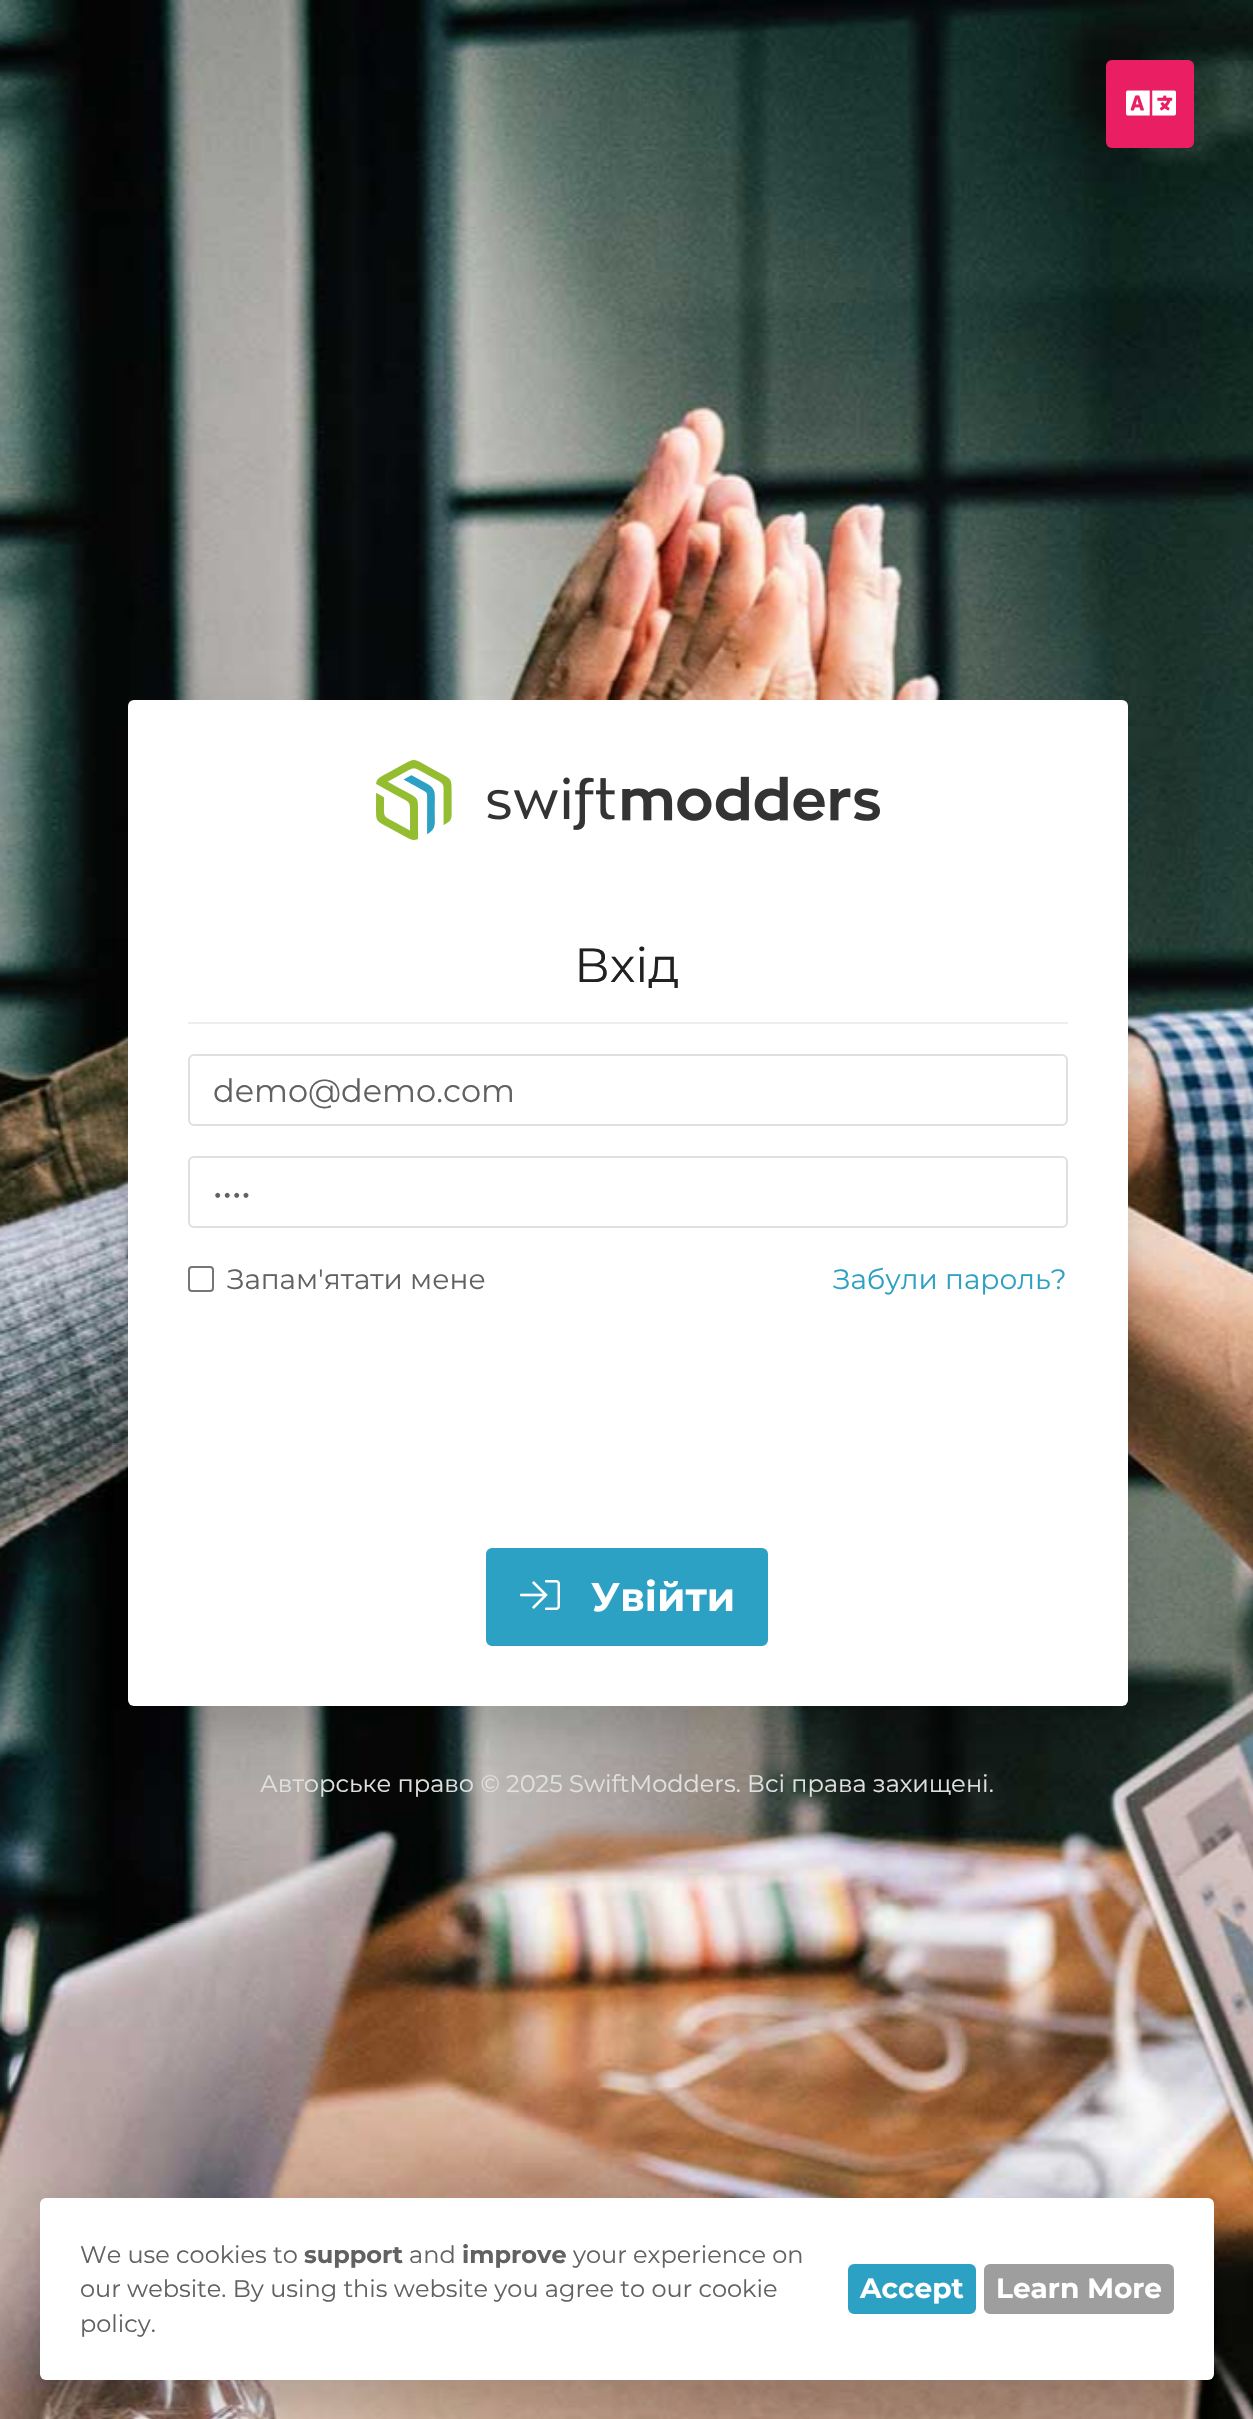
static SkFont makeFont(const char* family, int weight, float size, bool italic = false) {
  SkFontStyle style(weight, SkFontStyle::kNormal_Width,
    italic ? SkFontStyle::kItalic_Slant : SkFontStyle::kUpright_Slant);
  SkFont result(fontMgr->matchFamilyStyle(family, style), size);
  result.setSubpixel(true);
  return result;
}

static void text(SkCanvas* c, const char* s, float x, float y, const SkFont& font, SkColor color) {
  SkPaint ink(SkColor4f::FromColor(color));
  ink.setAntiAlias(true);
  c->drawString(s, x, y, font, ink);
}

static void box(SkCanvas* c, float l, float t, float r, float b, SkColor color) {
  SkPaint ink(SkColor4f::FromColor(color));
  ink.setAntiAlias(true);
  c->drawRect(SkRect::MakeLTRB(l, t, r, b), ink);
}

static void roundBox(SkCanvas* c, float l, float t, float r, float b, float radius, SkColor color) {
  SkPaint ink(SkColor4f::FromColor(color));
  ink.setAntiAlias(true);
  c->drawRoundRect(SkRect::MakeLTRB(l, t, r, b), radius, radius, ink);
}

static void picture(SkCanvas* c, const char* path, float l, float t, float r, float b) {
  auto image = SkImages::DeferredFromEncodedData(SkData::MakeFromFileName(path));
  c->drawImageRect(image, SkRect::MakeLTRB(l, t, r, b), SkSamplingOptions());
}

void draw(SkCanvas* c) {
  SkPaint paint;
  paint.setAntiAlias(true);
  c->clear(0xffffffff);
  picture(c, "img_01.png", 0, 0, 1253, 2419);
  roundBox(c, 1106, 60, 1194, 148, 6, 0xffe91e63);
  picture(c, "img_02.png", 1126, 90, 1176, 116);
  paint.setColor(0x1a000000);
  paint.setMaskFilter(SkMaskFilter::MakeBlur(kNormal_SkBlurStyle, 15));
  c->drawRoundRect(SkRect::MakeLTRB(128, 724, 1128, 1730), 6, 6, paint);
  paint.setMaskFilter(nullptr);
  paint.setMaskFilter(SkMaskFilter::MakeBlur(kNormal_SkBlurStyle, 50));
  c->drawRoundRect(SkRect::MakeLTRB(128, 734, 1128, 1740), 6, 6, paint);
  paint.setMaskFilter(nullptr);
  roundBox(c, 128, 700, 1128, 1706, 6, 0xffffffff);
  picture(c, "img_03.png", 376, 760, 880, 840);
  box(c, 188, 1022, 1068, 1024, 0xffeeeeee);
  SkFont face1 = makeFont("Montserrat", 400, 48);
  text(c, "Вхід", 574, 982, face1, 0xff212121);
  paint.setStyle(SkPaint::kStroke_Style);
  paint.setStrokeWidth(2);
  paint.setColor(0xffe0e0e0);
  c->drawRoundRect(SkRect::MakeLTRB(189, 1055, 1067, 1125), 5, 5, paint);
  SkFont face2 = makeFont("Montserrat", 400, 32);
  text(c, "demo@demo.com", 213, 1102, face2, 0xff616161);
  c->drawRoundRect(SkRect::MakeLTRB(189, 1157, 1067, 1227), 5, 5, paint);
  text(c, "••••", 213, 1204, face2, 0xff616161);
  paint.setColor(0xff767676);
  c->drawRoundRect(SkRect::MakeLTRB(189, 1267, 213, 1291), 3, 3, paint);
  SkFont face3 = makeFont("Montserrat", 400, 28);
  text(c, "Запам'ятати мене", 227, 1289, face3, 0xff616161);
  text(c, "Забули пароль?", 833, 1289, face3, 0xff2ca1c3);
  paint.setStyle(SkPaint::kFill_Style);
  paint.setColor(0xff2ca1c3);
  c->drawRoundRect(SkRect::MakeLTRB(487, 1549, 767, 1645), 5, 5, paint);
  paint.setStyle(SkPaint::kStroke_Style);
  c->drawRoundRect(SkRect::MakeLTRB(487, 1549, 767, 1645), 5, 5, paint);
  picture(c, "img_04.png", 520, 1580, 560, 1610);
  SkFont face4 = makeFont("Montserrat", 700, 40);
  text(c, "Увійти", 591, 1611, face4, 0xffffffff);
  SkFont face5 = makeFont("Montserrat", 400, 24);
  text(c, "Авторське право © 2025 SwiftModders. Всі права захищені.", 260, 1792, face5, 0xffe0e0e0);
  paint.setStyle(SkPaint::kFill_Style);
  paint.setColor(0x1a000000);
  paint.setMaskFilter(SkMaskFilter::MakeBlur(kNormal_SkBlurStyle, 15));
  c->drawRoundRect(SkRect::MakeLTRB(40, 2222, 1214, 2404), 6, 6, paint);
  paint.setMaskFilter(nullptr);
  paint.setMaskFilter(SkMaskFilter::MakeBlur(kNormal_SkBlurStyle, 50));
  c->drawRoundRect(SkRect::MakeLTRB(40, 2232, 1214, 2414), 6, 6, paint);
  paint.setMaskFilter(nullptr);
  roundBox(c, 40, 2198, 1214, 2380, 6, 0xffffffff);
  text(c, "We use cookies to", 80, 2263, face5, 0xff616161);
  SkFont face6 = makeFont("Montserrat", 700, 24);
  text(c, "support", 304, 2263, face6, 0xff616161);
  text(c, "and", 409, 2263, face5, 0xff616161);
  text(c, "improve", 462, 2263, face6, 0xff616161);
  text(c, "your experience on", 573, 2263, face5, 0xff616161);
  text(c, "our website. By using this website you agree to our cookie", 80, 2297, face5, 0xff616161);
  text(c, "policy.", 80, 2332, face5, 0xff616161);
  paint.setColor(0xff2ca1c3);
  c->drawRoundRect(SkRect::MakeLTRB(849, 2265, 975, 2313), 5, 5, paint);
  paint.setStyle(SkPaint::kStroke_Style);
  c->drawRoundRect(SkRect::MakeLTRB(849, 2265, 975, 2313), 5, 5, paint);
  SkFont face7 = makeFont("Montserrat", 700, 28);
  text(c, "Accept", 860, 2298, face7, 0xffffffff);
  paint.setStyle(SkPaint::kFill_Style);
  paint.setColor(0xff9e9e9e);
  c->drawRoundRect(SkRect::MakeLTRB(985, 2265, 1173, 2313), 5, 5, paint);
  paint.setStyle(SkPaint::kStroke_Style);
  c->drawRoundRect(SkRect::MakeLTRB(985, 2265, 1173, 2313), 5, 5, paint);
  text(c, "Learn More", 996, 2298, face7, 0xffffffff);
}
